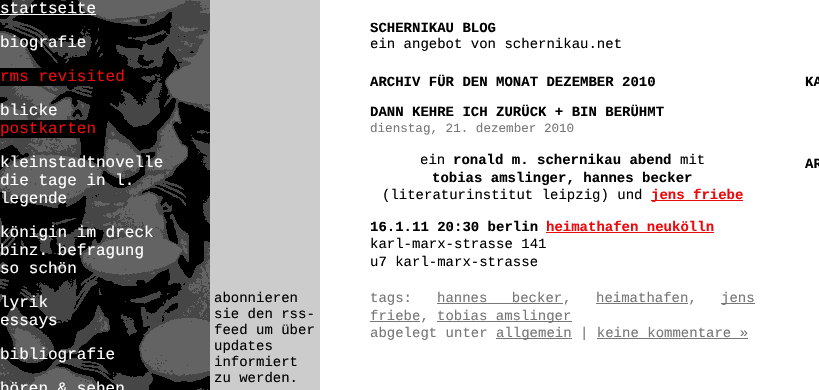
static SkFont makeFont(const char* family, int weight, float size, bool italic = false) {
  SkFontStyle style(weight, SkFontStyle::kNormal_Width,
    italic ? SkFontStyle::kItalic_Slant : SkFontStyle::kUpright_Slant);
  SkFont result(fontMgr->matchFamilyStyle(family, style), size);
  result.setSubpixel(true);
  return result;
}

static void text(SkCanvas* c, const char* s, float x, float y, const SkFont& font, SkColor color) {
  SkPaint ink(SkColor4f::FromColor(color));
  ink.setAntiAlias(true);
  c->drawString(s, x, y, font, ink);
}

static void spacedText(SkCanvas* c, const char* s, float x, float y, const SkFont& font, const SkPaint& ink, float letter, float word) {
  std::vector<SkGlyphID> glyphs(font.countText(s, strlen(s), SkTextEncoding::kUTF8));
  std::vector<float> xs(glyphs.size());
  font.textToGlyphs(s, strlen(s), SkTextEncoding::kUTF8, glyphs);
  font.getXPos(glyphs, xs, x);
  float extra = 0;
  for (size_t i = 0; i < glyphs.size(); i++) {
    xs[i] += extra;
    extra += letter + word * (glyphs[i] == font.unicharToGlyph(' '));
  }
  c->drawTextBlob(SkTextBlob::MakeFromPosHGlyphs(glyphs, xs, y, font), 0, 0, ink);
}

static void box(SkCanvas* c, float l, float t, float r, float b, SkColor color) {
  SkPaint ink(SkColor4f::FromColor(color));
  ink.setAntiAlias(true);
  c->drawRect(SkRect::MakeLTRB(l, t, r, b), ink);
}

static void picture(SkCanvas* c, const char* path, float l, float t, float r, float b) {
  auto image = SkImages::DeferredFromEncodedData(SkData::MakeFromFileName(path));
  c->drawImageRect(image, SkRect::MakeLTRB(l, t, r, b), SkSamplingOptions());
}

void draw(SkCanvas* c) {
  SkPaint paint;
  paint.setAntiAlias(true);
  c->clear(0xffffffff);
  picture(c, "img_01.png", 0, 0, 210, 390);
  SkFont face1 = makeFont("Liberation Mono", 400, 16);
  text(c, "startseite", 0, 13, face1, 0xffffffff);
  box(c, 0, 14, 96, 15, 0xffffffff);
  text(c, "biografie", 0, 47, face1, 0xffffffff);
  box(c, 0, 68, 86, 86, 0xff000000);
  text(c, "rms revisited", 0, 81, face1, 0xffec0a0c);
  text(c, "blicke", 0, 115, face1, 0xffffffff);
  box(c, 0, 120, 86, 138, 0xff000000);
  text(c, "postkarten", 0, 133, face1, 0xffec0a0c);
  text(c, "kleinstadtnovelle", 0, 167, face1, 0xffffffff);
  text(c, "die tage in l.", 0, 185, face1, 0xffffffff);
  text(c, "legende", 0, 203, face1, 0xffffffff);
  text(c, "königin im dreck", 0, 237, face1, 0xffffffff);
  text(c, "binz. befragung", 0, 255, face1, 0xffffffff);
  text(c, "so schön", 0, 273, face1, 0xffffffff);
  text(c, "lyrik", 0, 307, face1, 0xffffffff);
  text(c, "essays", 0, 325, face1, 0xffffffff);
  text(c, "bibliografie", 0, 359, face1, 0xffffffff);
  text(c, "hören & sehen", 0, 393, face1, 0xffffffff);
  box(c, 210, 0, 320, 390, 0xffcccccc);
  SkFont face2 = makeFont("Liberation Mono", 400, 14);
  text(c, "abonnieren", 214, 302, face2, 0xff000000);
  text(c, "sie den rss-", 214, 318, face2, 0xff000000);
  text(c, "feed um über", 214, 334, face2, 0xff000000);
  text(c, "updates", 214, 350, face2, 0xff000000);
  text(c, "informiert", 214, 366, face2, 0xff000000);
  text(c, "zu werden.", 214, 382, face2, 0xff000000);
  SkFont face3 = makeFont("Liberation Mono", 700, 14);
  text(c, "SCHERNIKAU BLOG", 370, 32, face3, 0xff000000);
  text(c, "ein angebot von schernikau.net", 370, 48, face2, 0xff000000);
  text(c, "ARCHIV FÜR DEN MONAT DEZEMBER 2010", 370, 86, face3, 0xff000000);
  text(c, "DANN KEHRE ICH ZURÜCK + BIN BERÜHMT", 370, 116, face3, 0xff000000);
  SkFont face4 = makeFont("Liberation Mono", 400, 12.6f);
  text(c, "dienstag, 21. dezember 2010", 370, 132, face4, 0xff777777);
  text(c, "ein", 420, 164, face2, 0xff000000);
  text(c, "ronald m. schernikau abend", 453, 164, face3, 0xff000000);
  text(c, "mit", 680, 164, face2, 0xff000000);
  text(c, "tobias amslinger, hannes becker", 432, 182, face3, 0xff000000);
  text(c, "(literaturinstitut leipzig) und", 382, 199, face2, 0xff000000);
  box(c, 651, 200, 743, 201, 0xffec0a0c);
  text(c, "jens friebe", 651, 199, face3, 0xffec0a0c);
  text(c, "16.1.11 20:30 berlin", 370, 231, face3, 0xff000000);
  text(c, "heimathafen neukölln", 546, 231, face3, 0xffec0a0c);
  box(c, 546, 232, 714, 233, 0xffec0a0c);
  text(c, "karl-marx-strasse 141", 370, 248, face2, 0xff000000);
  text(c, "u7 karl-marx-strasse", 370, 266, face2, 0xff000000);
  text(c, "tags:", 370, 302, face2, 0xff777777);
  paint.setColor(0xff777777);
  spacedText(c, "hannes becker", 437, 302, face2, paint, 0, 16);
  box(c, 437, 303, 563, 304, 0xff777777);
  text(c, ",", 563, 302, face2, 0xff777777);
  box(c, 596, 303, 688, 304, 0xff777777);
  text(c, "heimathafen,", 596, 302, face2, 0xff777777);
  box(c, 721, 303, 755, 304, 0xff777777);
  text(c, "jens", 721, 302, face2, 0xff777777);
  box(c, 370, 321, 420, 322, 0xff777777);
  text(c, "friebe,", 370, 320, face2, 0xff777777);
  box(c, 437, 321, 572, 322, 0xff777777);
  text(c, "tobias amslinger", 437, 320, face2, 0xff777777);
  text(c, "abgelegt unter", 370, 337, face2, 0xff777777);
  box(c, 496, 338, 572, 339, 0xff777777);
  text(c, "allgemein | keine kommentare »", 496, 337, face2, 0xff777777);
  box(c, 597, 338, 748, 339, 0xff777777);
  text(c, "KA", 805, 86, face3, 0xff000000);
  text(c, "AR", 805, 168, face3, 0xff000000);
}
